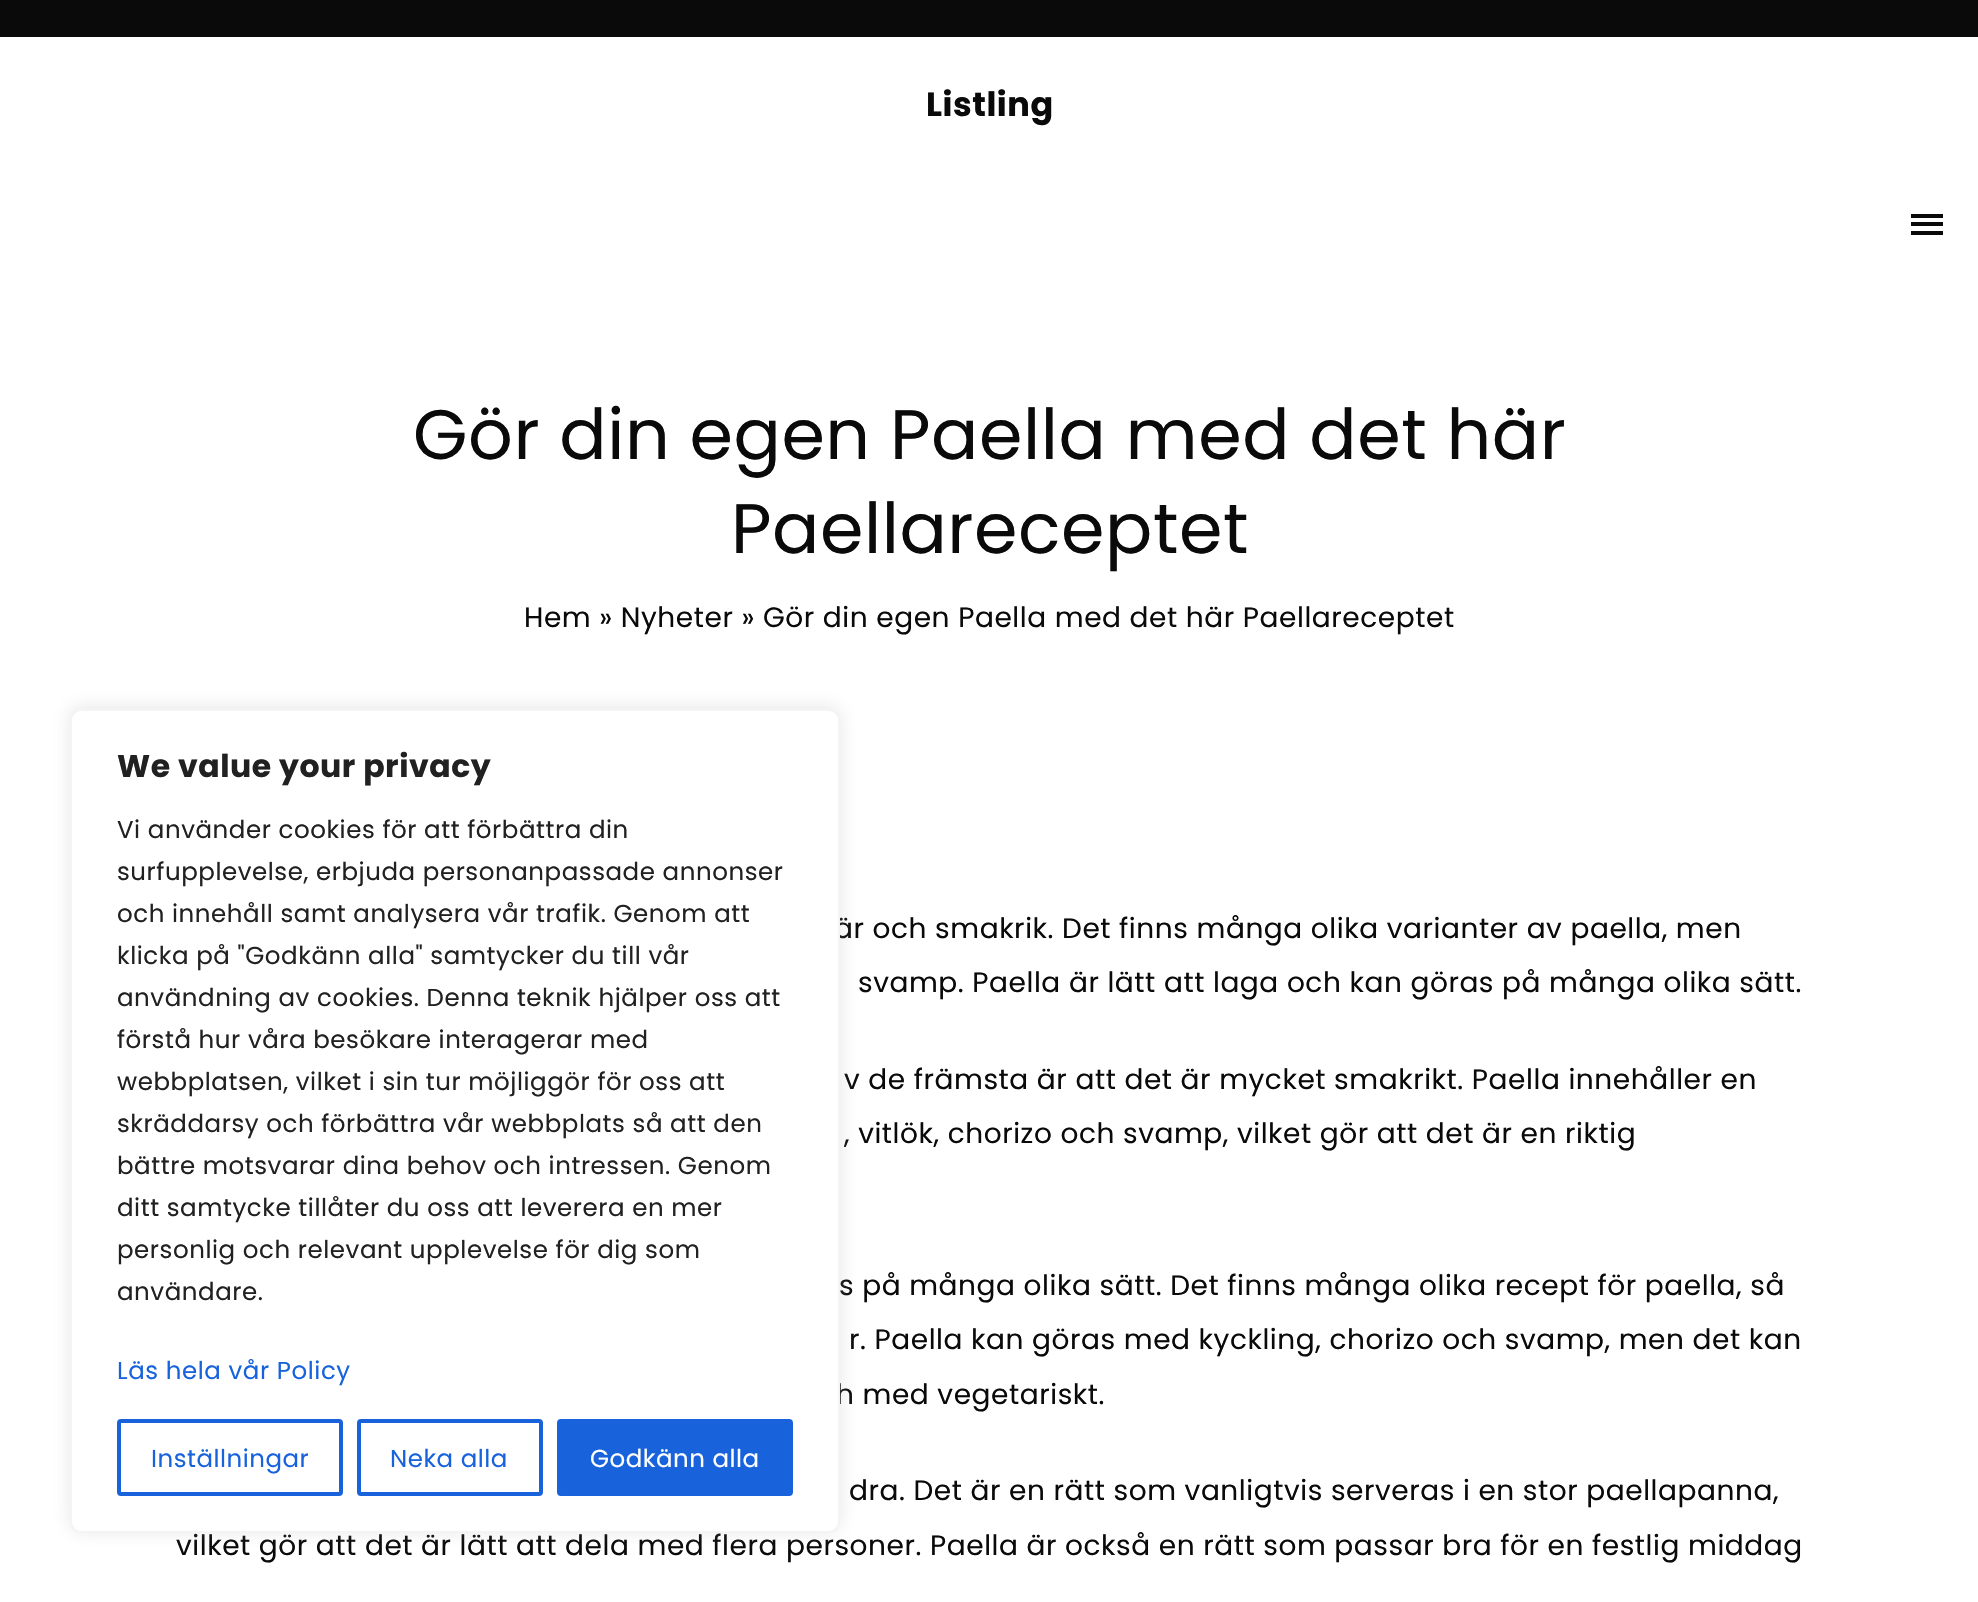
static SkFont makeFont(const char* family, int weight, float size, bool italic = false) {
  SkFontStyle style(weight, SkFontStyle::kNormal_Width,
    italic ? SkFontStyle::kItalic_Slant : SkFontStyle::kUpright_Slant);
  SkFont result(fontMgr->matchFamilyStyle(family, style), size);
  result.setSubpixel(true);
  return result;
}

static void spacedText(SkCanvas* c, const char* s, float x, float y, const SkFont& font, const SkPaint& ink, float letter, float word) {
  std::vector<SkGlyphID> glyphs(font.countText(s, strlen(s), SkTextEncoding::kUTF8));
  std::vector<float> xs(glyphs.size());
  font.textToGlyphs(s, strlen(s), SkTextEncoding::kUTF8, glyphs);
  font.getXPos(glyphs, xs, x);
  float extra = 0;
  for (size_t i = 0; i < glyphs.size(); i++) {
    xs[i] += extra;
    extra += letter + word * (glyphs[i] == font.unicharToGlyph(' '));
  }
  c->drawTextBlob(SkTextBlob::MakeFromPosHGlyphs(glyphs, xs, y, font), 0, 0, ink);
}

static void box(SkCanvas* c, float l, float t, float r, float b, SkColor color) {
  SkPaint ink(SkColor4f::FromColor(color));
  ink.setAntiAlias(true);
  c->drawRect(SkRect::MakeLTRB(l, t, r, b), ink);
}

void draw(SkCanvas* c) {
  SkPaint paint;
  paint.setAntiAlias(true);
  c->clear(0xffffffff);
  box(c, 0, 0, 1978, 37, 0xff0a0a0a);
  SkFont face1 = makeFont("Poppins", 700, 33.5f);
  paint.setColor(0xff0a0a0a);
  spacedText(c, "Listling", 926, 116, face1, paint, 0.56f, 0);
  box(c, 1911, 222, 1943, 226, 0xff0a0a0a);
  box(c, 1911, 214, 1943, 218, 0xff0a0a0a);
  box(c, 1911, 231, 1943, 235, 0xff0a0a0a);
  SkFont face2 = makeFont("Poppins", 400, 70);
  spacedText(c, "Gör din egen Paella med det här", 413, 459, face2, paint, 0.56f, 0);
  spacedText(c, "Paellareceptet", 731, 553, face2, paint, 0.56f, 0);
  SkFont face3 = makeFont("Poppins", 400, 28);
  spacedText(c, "Hem » Nyheter » Gör din egen Paella med det här Paellareceptet", 524, 627, face3, paint, 0.56f, 0);
  spacedText(c, "är och smakrik. Det finns många olika varianter av paella, men", 834, 938, face3, paint, 0.56f, 0);
  spacedText(c, "svamp. Paella är lätt att laga och kan göras på många olika sätt.", 858, 992, face3, paint, 0.56f, 0);
  spacedText(c, "v de främsta är att det är mycket smakrikt. Paella innehåller en", 844, 1089, face3, paint, 0.56f, 0);
  spacedText(c, ", vitlök, chorizo och svamp, vilket gör att det är en riktig", 844, 1143, face3, paint, 0.56f, 0);
  spacedText(c, "s på många olika sätt. Det finns många olika recept för paella, så", 839, 1295, face3, paint, 0.56f, 0);
  spacedText(c, "r. Paella kan göras med kyckling, chorizo och svamp, men det kan", 849, 1349, face3, paint, 0.56f, 0);
  spacedText(c, "h med vegetariskt.", 836, 1404, face3, paint, 0.56f, 0);
  spacedText(c, "dra. Det är en rätt som vanligtvis serveras i en stor paellapanna,", 849, 1500, face3, paint, 0.56f, 0);
  spacedText(c, "vilket gör att det är lätt att dela med flera personer. Paella är också en rätt som passar bra för en festlig middag", 176, 1555, face3, paint, 0.56f, 0);
  paint.setColor(0x4dacabab);
  paint.setMaskFilter(SkMaskFilter::MakeBlur(kNormal_SkBlurStyle, 9));
  c->drawRoundRect(SkRect::MakeLTRB(70, 707, 840, 1531), 11, 11, paint);
  paint.setMaskFilter(nullptr);
  paint.setColor(0xffffffff);
  c->drawRoundRect(SkRect::MakeLTRB(71, 710, 839, 1532), 10, 10, paint);
  paint.setStyle(SkPaint::kStroke_Style);
  paint.setStrokeWidth(2);
  paint.setColor(0xfff4f4f4);
  c->drawRoundRect(SkRect::MakeLTRB(71, 710, 839, 1532), 10, 10, paint);
  SkFont face4 = makeFont("Poppins", 700, 31.5f);
  paint.setStyle(SkPaint::kFill_Style);
  paint.setColor(0xff212121);
  spacedText(c, "We value your privacy", 117, 777, face4, paint, 0.56f, 0);
  SkFont face5 = makeFont("Poppins", 400, 24.5f);
  spacedText(c, "Vi använder cookies för att förbättra din", 117, 838, face5, paint, 0.56f, 0);
  spacedText(c, "surfupplevelse, erbjuda personanpassade annonser", 117, 880, face5, paint, 0.56f, 0);
  spacedText(c, "och innehåll samt analysera vår trafik. Genom att", 117, 922, face5, paint, 0.56f, 0);
  spacedText(c, "klicka på \"Godkänn alla\" samtycker du till vår", 117, 964, face5, paint, 0.56f, 0);
  spacedText(c, "användning av cookies. Denna teknik hjälper oss att", 117, 1006, face5, paint, 0.56f, 0);
  spacedText(c, "förstå hur våra besökare interagerar med", 117, 1048, face5, paint, 0.56f, 0);
  spacedText(c, "webbplatsen, vilket i sin tur möjliggör för oss att", 117, 1090, face5, paint, 0.56f, 0);
  spacedText(c, "skräddarsy och förbättra vår webbplats så att den", 117, 1132, face5, paint, 0.56f, 0);
  spacedText(c, "bättre motsvarar dina behov och intressen. Genom", 117, 1174, face5, paint, 0.56f, 0);
  spacedText(c, "ditt samtycke tillåter du oss att leverera en mer", 117, 1216, face5, paint, 0.56f, 0);
  spacedText(c, "personlig och relevant upplevelse för dig som", 117, 1258, face5, paint, 0.56f, 0);
  spacedText(c, "användare.", 117, 1300, face5, paint, 0.56f, 0);
  paint.setColor(0xff1863dc);
  spacedText(c, "Läs hela vår Policy", 117, 1379, face5, paint, 0.56f, 0);
  paint.setStyle(SkPaint::kStroke_Style);
  paint.setStrokeWidth(4);
  c->drawRoundRect(SkRect::MakeLTRB(119, 1421, 341, 1494), 2, 2, paint);
  paint.setStyle(SkPaint::kFill_Style);
  spacedText(c, "Inställningar", 151, 1467, face5, paint, 0.5f, 0);
  paint.setStyle(SkPaint::kStroke_Style);
  c->drawRoundRect(SkRect::MakeLTRB(359, 1421, 541, 1494), 2, 2, paint);
  paint.setStyle(SkPaint::kFill_Style);
  spacedText(c, "Neka alla", 390, 1467, face5, paint, 0.5f, 0);
  c->drawRoundRect(SkRect::MakeLTRB(559, 1421, 791, 1494), 2, 2, paint);
  paint.setStyle(SkPaint::kStroke_Style);
  c->drawRoundRect(SkRect::MakeLTRB(559, 1421, 791, 1494), 2, 2, paint);
  paint.setStyle(SkPaint::kFill_Style);
  paint.setColor(0xffffffff);
  spacedText(c, "Godkänn alla", 590, 1467, face5, paint, 0.5f, 0);
}
